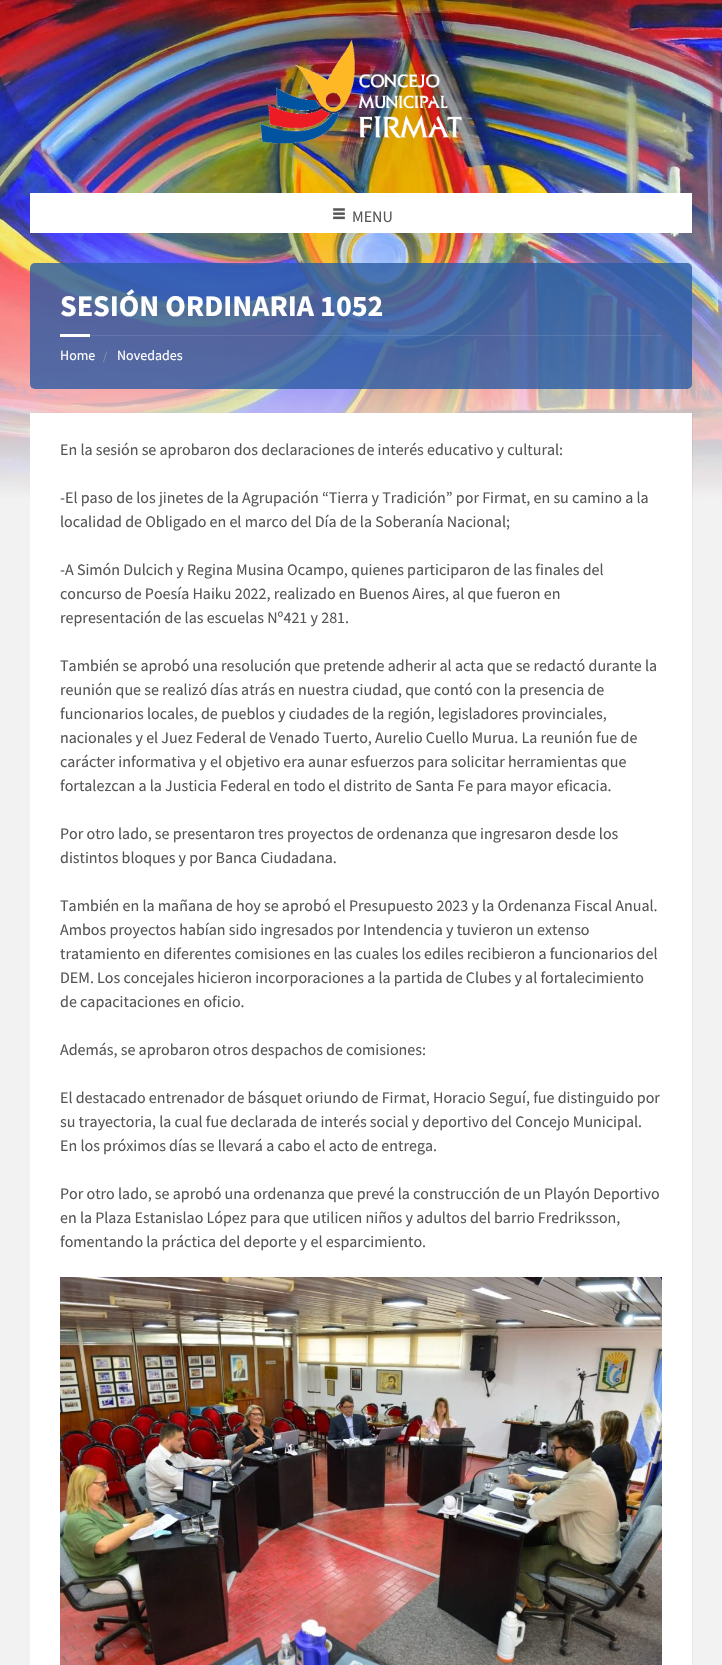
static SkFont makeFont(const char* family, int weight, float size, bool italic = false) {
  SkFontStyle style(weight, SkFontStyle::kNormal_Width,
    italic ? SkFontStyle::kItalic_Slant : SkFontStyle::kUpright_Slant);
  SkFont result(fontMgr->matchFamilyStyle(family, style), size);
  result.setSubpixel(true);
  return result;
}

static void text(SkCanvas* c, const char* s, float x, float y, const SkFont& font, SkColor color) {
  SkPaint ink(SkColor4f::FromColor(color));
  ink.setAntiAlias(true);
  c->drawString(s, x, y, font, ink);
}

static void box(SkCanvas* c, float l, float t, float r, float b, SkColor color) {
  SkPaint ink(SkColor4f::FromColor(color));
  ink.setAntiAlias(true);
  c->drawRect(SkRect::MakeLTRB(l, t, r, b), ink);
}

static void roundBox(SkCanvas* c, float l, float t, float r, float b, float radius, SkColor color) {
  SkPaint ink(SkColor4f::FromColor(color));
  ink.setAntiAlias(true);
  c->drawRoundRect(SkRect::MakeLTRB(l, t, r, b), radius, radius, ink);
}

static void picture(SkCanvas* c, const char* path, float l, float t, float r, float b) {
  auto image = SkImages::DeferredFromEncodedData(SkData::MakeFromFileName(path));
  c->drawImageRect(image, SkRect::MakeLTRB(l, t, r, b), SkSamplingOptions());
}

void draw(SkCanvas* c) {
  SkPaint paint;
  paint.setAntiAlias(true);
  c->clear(0xfff2f2f2);
  picture(c, "img_01.png", 0, 0, 722, 500);
  picture(c, "img_02.png", 260, 39, 463, 144);
  box(c, 30, 193, 692, 233, 0xffffffff);
  picture(c, "img_03.png", 333, 208, 345, 220);
  SkFont face1 = makeFont("Source Sans Pro", 400, 16);
  text(c, "MENU", 352, 222, face1, 0xff565656);
  roundBox(c, 30, 263, 692, 389, 5, 0xcc2b5ba4);
  SkFont face2 = makeFont("Source Sans Pro", 700, 30);
  text(c, "SESIÓN ORDINARIA 1052", 60, 316, face2, 0xffffffff);
  box(c, 90, 335, 662, 336, 0x1affffff);
  box(c, 60, 334, 90, 337, 0xffffffff);
  SkFont face3 = makeFont("Source Sans Pro", 400, 14);
  text(c, "Home", 60, 360, face3, 0xffffffff);
  SkFont face4 = makeFont("Source Sans Pro", 400, 12);
  text(c, "/", 103, 360, face4, 0xff8a949b);
  text(c, "Novedades", 117, 360, face3, 0xffffffff);
  paint.setColor(0x0d000000);
  c->drawPath(SkPathBuilder().moveTo(31, 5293).lineTo(31, 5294).lineTo(693, 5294).lineTo(693, 414).lineTo(692, 414).lineTo(692, 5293).close().detach(), paint);
  box(c, 30, 413, 692, 1665, 0xffffffff);
  text(c, "En la sesión se aprobaron dos declaraciones de interés educativo y cultural:", 60, 455, face1, 0xff565656);
  text(c, "-El paso de los jinetes de la Agrupación “Tierra y Tradición” por Firmat, en su camino a la", 60, 503, face1, 0xff565656);
  text(c, "localidad de Obligado en el marco del Día de la Soberanía Nacional;", 60, 527, face1, 0xff565656);
  text(c, "-A Simón Dulcich y Regina Musina Ocampo, quienes participaron de las finales del", 60, 575, face1, 0xff565656);
  text(c, "concurso de Poesía Haiku 2022, realizado en Buenos Aires, al que fueron en", 60, 599, face1, 0xff565656);
  text(c, "representación de las escuelas Nº421 y 281.", 60, 623, face1, 0xff565656);
  text(c, "También se aprobó una resolución que pretende adherir al acta que se redactó durante la", 60, 671, face1, 0xff565656);
  text(c, "reunión que se realizó días atrás en nuestra ciudad, que contó con la presencia de", 60, 695, face1, 0xff565656);
  text(c, "funcionarios locales, de pueblos y ciudades de la región, legisladores provinciales,", 60, 719, face1, 0xff565656);
  text(c, "nacionales y el Juez Federal de Venado Tuerto, Aurelio Cuello Murua. La reunión fue de", 60, 743, face1, 0xff565656);
  text(c, "carácter informativa y el objetivo era aunar esfuerzos para solicitar herramientas que", 60, 767, face1, 0xff565656);
  text(c, "fortalezcan a la Justicia Federal en todo el distrito de Santa Fe para mayor eficacia.", 60, 791, face1, 0xff565656);
  text(c, "Por otro lado, se presentaron tres proyectos de ordenanza que ingresaron desde los", 60, 839, face1, 0xff565656);
  text(c, "distintos bloques y por Banca Ciudadana.", 60, 863, face1, 0xff565656);
  text(c, "También en la mañana de hoy se aprobó el Presupuesto 2023 y la Ordenanza Fiscal Anual.", 60, 911, face1, 0xff565656);
  text(c, "Ambos proyectos habían sido ingresados por Intendencia y tuvieron un extenso", 60, 935, face1, 0xff565656);
  text(c, "tratamiento en diferentes comisiones en las cuales los ediles recibieron a funcionarios del", 60, 959, face1, 0xff565656);
  text(c, "DEM. Los concejales hicieron incorporaciones a la partida de Clubes y al fortalecimiento", 60, 983, face1, 0xff565656);
  text(c, "de capacitaciones en oficio.", 60, 1007, face1, 0xff565656);
  text(c, "Además, se aprobaron otros despachos de comisiones:", 60, 1055, face1, 0xff565656);
  text(c, "El destacado entrenador de básquet oriundo de Firmat, Horacio Seguí, fue distinguido por", 60, 1103, face1, 0xff565656);
  text(c, "su trayectoria, la cual fue declarada de interés social y deportivo del Concejo Municipal.", 60, 1127, face1, 0xff565656);
  text(c, "En los próximos días se llevará a cabo el acto de entrega.", 60, 1151, face1, 0xff565656);
  text(c, "Por otro lado, se aprobó una ordenanza que prevé la construcción de un Playón Deportivo", 60, 1199, face1, 0xff565656);
  text(c, "en la Plaza Estanislao López para que utilicen niños y adultos del barrio Fredriksson,", 60, 1223, face1, 0xff565656);
  text(c, "fomentando la práctica del deporte y el esparcimiento.", 60, 1247, face1, 0xff565656);
  picture(c, "img_04.png", 60, 1277, 662, 1665);
}
